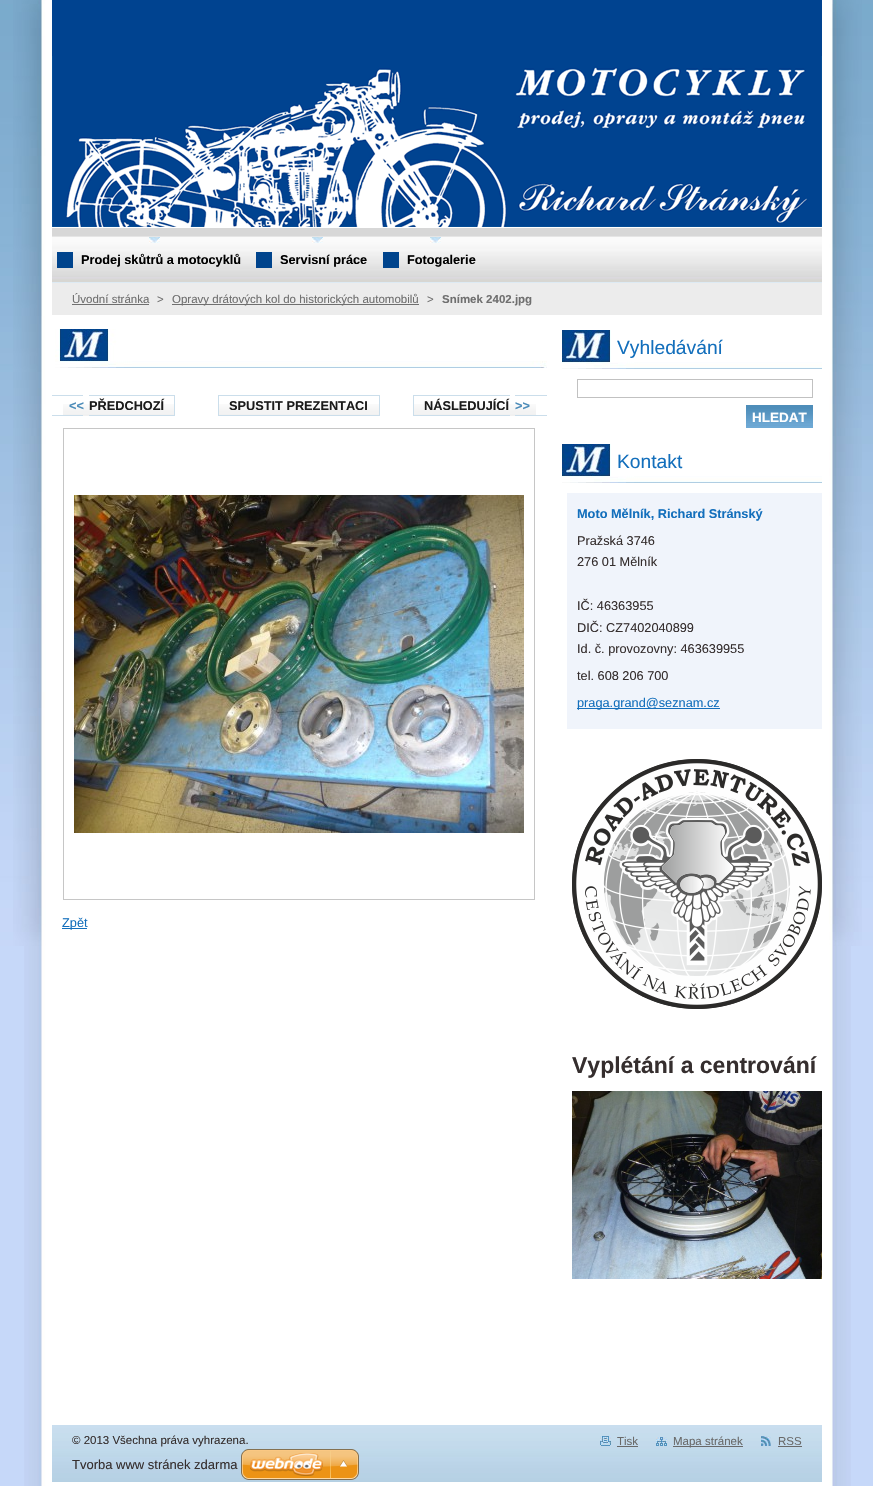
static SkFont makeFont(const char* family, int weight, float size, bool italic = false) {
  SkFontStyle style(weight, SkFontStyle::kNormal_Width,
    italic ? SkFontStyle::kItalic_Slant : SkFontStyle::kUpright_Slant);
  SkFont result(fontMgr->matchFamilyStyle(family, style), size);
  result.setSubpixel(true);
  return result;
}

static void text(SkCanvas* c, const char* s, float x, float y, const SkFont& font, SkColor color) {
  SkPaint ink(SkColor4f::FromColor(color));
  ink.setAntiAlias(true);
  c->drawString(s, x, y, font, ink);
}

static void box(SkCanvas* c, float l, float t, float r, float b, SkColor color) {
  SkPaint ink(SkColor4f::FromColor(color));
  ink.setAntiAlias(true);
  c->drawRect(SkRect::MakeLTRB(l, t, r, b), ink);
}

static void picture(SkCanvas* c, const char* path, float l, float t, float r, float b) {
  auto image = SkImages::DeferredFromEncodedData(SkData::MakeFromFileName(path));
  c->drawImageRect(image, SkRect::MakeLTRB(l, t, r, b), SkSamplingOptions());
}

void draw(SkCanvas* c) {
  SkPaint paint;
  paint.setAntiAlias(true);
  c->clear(0xffc6d8f9);
  picture(c, "img_01.png", 24, 1482, 851, 1486);
  picture(c, "img_02.png", 24, 946, 851, 1482);
  picture(c, "img_03.png", 0, 0, 873, 946);
  picture(c, "img_04.png", 13, 0, 862, 946);
  box(c, 52, 228, 822, 236, 0xffd7d7d7);
  picture(c, "img_05.png", 52, 0, 822, 227);
  picture(c, "img_06.png", 52, 237, 822, 282);
  box(c, 52, 236, 822, 237, 0xffe5e5e5);
  box(c, 52, 282, 822, 283, 0xffddeaf3);
  box(c, 57, 252, 73, 268, 0xff00448d);
  picture(c, "img_07.png", 149, 237, 160, 243);
  SkFont face1 = makeFont("Liberation Sans", 700, 12.75f);
  text(c, "Prodej skůtrů a motocyklů", 81, 264, face1, 0xff000000);
  box(c, 256, 252, 272, 268, 0xff00448d);
  picture(c, "img_07.png", 312, 237, 323, 243);
  text(c, "Servisní práce", 280, 264, face1, 0xff000000);
  box(c, 383, 252, 399, 268, 0xff00448d);
  picture(c, "img_07.png", 430, 237, 441, 243);
  text(c, "Fotogalerie", 407, 264, face1, 0xff000000);
  box(c, 52, 283, 822, 315, 0xffececec);
  SkFont face2 = makeFont("Liberation Sans", 400, 11.5f);
  text(c, "Úvodní stránka", 72, 303, face2, 0xff6f6f6f);
  box(c, 72, 304, 149, 305, 0xff6f6f6f);
  text(c, ">", 157, 303, face2, 0xff6f6f6f);
  box(c, 172, 304, 419, 305, 0xff6f6f6f);
  text(c, "Opravy drátových kol do historických automobilů", 172, 303, face2, 0xff6f6f6f);
  text(c, ">", 427, 303, face2, 0xff6f6f6f);
  SkFont face3 = makeFont("Liberation Sans", 700, 11.5f);
  text(c, "Snímek 2402.jpg", 442, 303, face3, 0xff6f6f6f);
  picture(c, "img_08.png", 55, 329, 547, 368);
  picture(c, "img_09.png", 63, 404, 174, 416);
  box(c, 52, 395, 83, 396, 0xffcbdeeb);
  box(c, 52, 415, 83, 416, 0xffcbdeeb);
  box(c, 89, 395, 175, 396, 0xffcbdeeb);
  box(c, 174, 395, 175, 416, 0xffcbdeeb);
  box(c, 89, 415, 175, 416, 0xffcbdeeb);
  text(c, "<<", 69, 410, face1, 0xff4c8cb9);
  text(c, "PŘEDCHOZÍ", 89, 410, face1, 0xff1b1b1b);
  picture(c, "img_10.png", 219, 404, 379, 415);
  paint.setStyle(SkPaint::kStroke_Style);
  paint.setStrokeWidth(1);
  paint.setColor(0xffcbdeeb);
  c->drawRect(SkRect::MakeLTRB(218.5f, 395.5f, 379.5f, 415.5f), paint);
  text(c, "SPUSTIT PREZENTACI", 229, 410, face1, 0xff1b1b1b);
  picture(c, "img_11.png", 414, 404, 536, 416);
  box(c, 413, 395, 510, 396, 0xffcbdeeb);
  box(c, 413, 415, 510, 416, 0xffcbdeeb);
  box(c, 413, 395, 414, 416, 0xffcbdeeb);
  box(c, 515, 395, 547, 396, 0xffcbdeeb);
  box(c, 515, 415, 547, 416, 0xffcbdeeb);
  text(c, "NÁSLEDUJÍCÍ", 424, 410, face1, 0xff1b1b1b);
  text(c, ">>", 515, 410, face1, 0xff4c8cb9);
  paint.setColor(0xffc6c6c6);
  c->drawRect(SkRect::MakeLTRB(63.5f, 428.5f, 534.5f, 899.5f), paint);
  picture(c, "img_12.png", 74, 495, 524, 833);
  box(c, 62, 928, 87, 929, 0xff136fbc);
  SkFont face4 = makeFont("Liberation Sans", 400, 12.75f);
  text(c, "Zpět", 62, 927, face4, 0xff136fbc);
  picture(c, "img_13.png", 562, 330, 822, 369);
  SkFont face5 = makeFont("Liberation Sans", 400, 19.25f);
  text(c, "Vyhledávání", 617, 354, face5, 0xff136fbc);
  paint.setColor(0xffc1c1c1);
  c->drawRect(SkRect::MakeLTRB(577.5f, 379.5f, 812.5f, 397.5f), paint);
  picture(c, "img_14.png", 746, 405, 813, 428);
  SkFont face6 = makeFont("Liberation Sans", 700, 13.5f);
  text(c, "HLEDAT", 752, 422, face6, 0xffffffff);
  picture(c, "img_13.png", 562, 444, 822, 483);
  text(c, "Kontakt", 617, 468, face5, 0xff136fbc);
  box(c, 567, 493, 822, 729, 0xfff0f4fb);
  text(c, "Moto Mělník, Richard Stránský", 577, 518, face1, 0xff136fbc);
  text(c, "Pražská 3746", 577, 545, face4, 0xff352e2e);
  text(c, "276 01 Mělník", 577, 566, face4, 0xff352e2e);
  text(c, "IČ: 46363955", 577, 610, face4, 0xff352e2e);
  text(c, "DIČ: CZ7402040899", 577, 632, face4, 0xff352e2e);
  text(c, "Id. č. provozovny: 463639955", 577, 653, face4, 0xff352e2e);
  text(c, "tel. 608 206 700", 577, 680, face4, 0xff352e2e);
  box(c, 577, 708, 720, 709, 0xff136fbc);
  text(c, "praga.grand@seznam.cz", 577, 707, face4, 0xff136fbc);
  picture(c, "img_15.png", 572, 759, 822, 1009);
  SkFont face7 = makeFont("Liberation Sans", 700, 23);
  text(c, "Vyplétání a centrování", 572, 1073, face7, 0xff352e2e);
  picture(c, "img_16.png", 572, 1091, 822, 1279);
  picture(c, "img_17.png", 52, 1425, 822, 1482);
  text(c, "© 2013 Všechna práva vyhrazena.", 72, 1444, face2, 0xff352e2e);
  picture(c, "img_18.png", 600, 1436, 611, 1446);
  text(c, "Tisk", 617, 1445, face2, 0xff696969);
  box(c, 617, 1446, 638, 1447, 0xff696969);
  picture(c, "img_19.png", 656, 1437, 667, 1446);
  box(c, 673, 1446, 743, 1447, 0xff696969);
  text(c, "Mapa stránek", 673, 1445, face2, 0xff696969);
  picture(c, "img_20.png", 761, 1436, 771, 1446);
  text(c, "RSS", 778, 1445, face2, 0xff696969);
  box(c, 778, 1446, 802, 1447, 0xff696969);
  SkFont face8 = makeFont("Liberation Sans", 400, 13);
  text(c, "Tvorba www stránek zdarma", 72, 1469, face8, 0xff352e2e);
  picture(c, "img_21.png", 241, 1449, 359, 1480);
}
